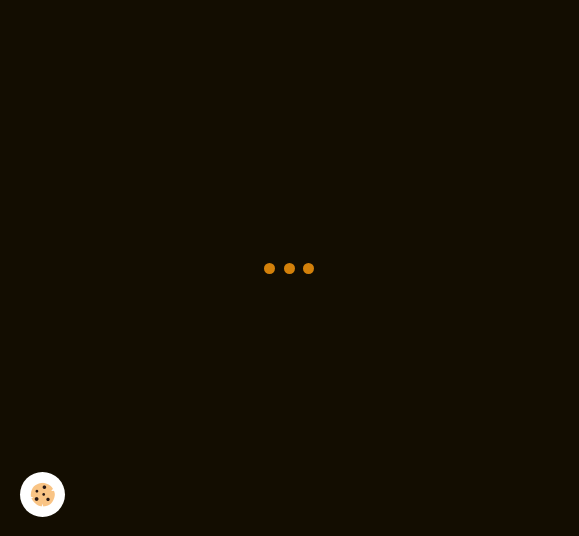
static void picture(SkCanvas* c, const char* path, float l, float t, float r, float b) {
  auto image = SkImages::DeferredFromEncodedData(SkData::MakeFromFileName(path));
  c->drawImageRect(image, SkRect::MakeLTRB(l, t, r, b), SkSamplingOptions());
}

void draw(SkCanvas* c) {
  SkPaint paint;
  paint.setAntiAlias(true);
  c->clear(0xff130d01);
  paint.setColor(0xffd3800a);
  c->drawCircle(269.5f, 268.5f, 5.5f, paint);
  c->drawCircle(289.5f, 268.5f, 5.5f, paint);
  c->drawCircle(308.5f, 268.5f, 5.5f, paint);
  paint.setColor(0xffffffff);
  c->drawCircle(42.5f, 494.5f, 22.5f, paint);
  picture(c, "img_01.png", 30, 482, 55, 507);
}
